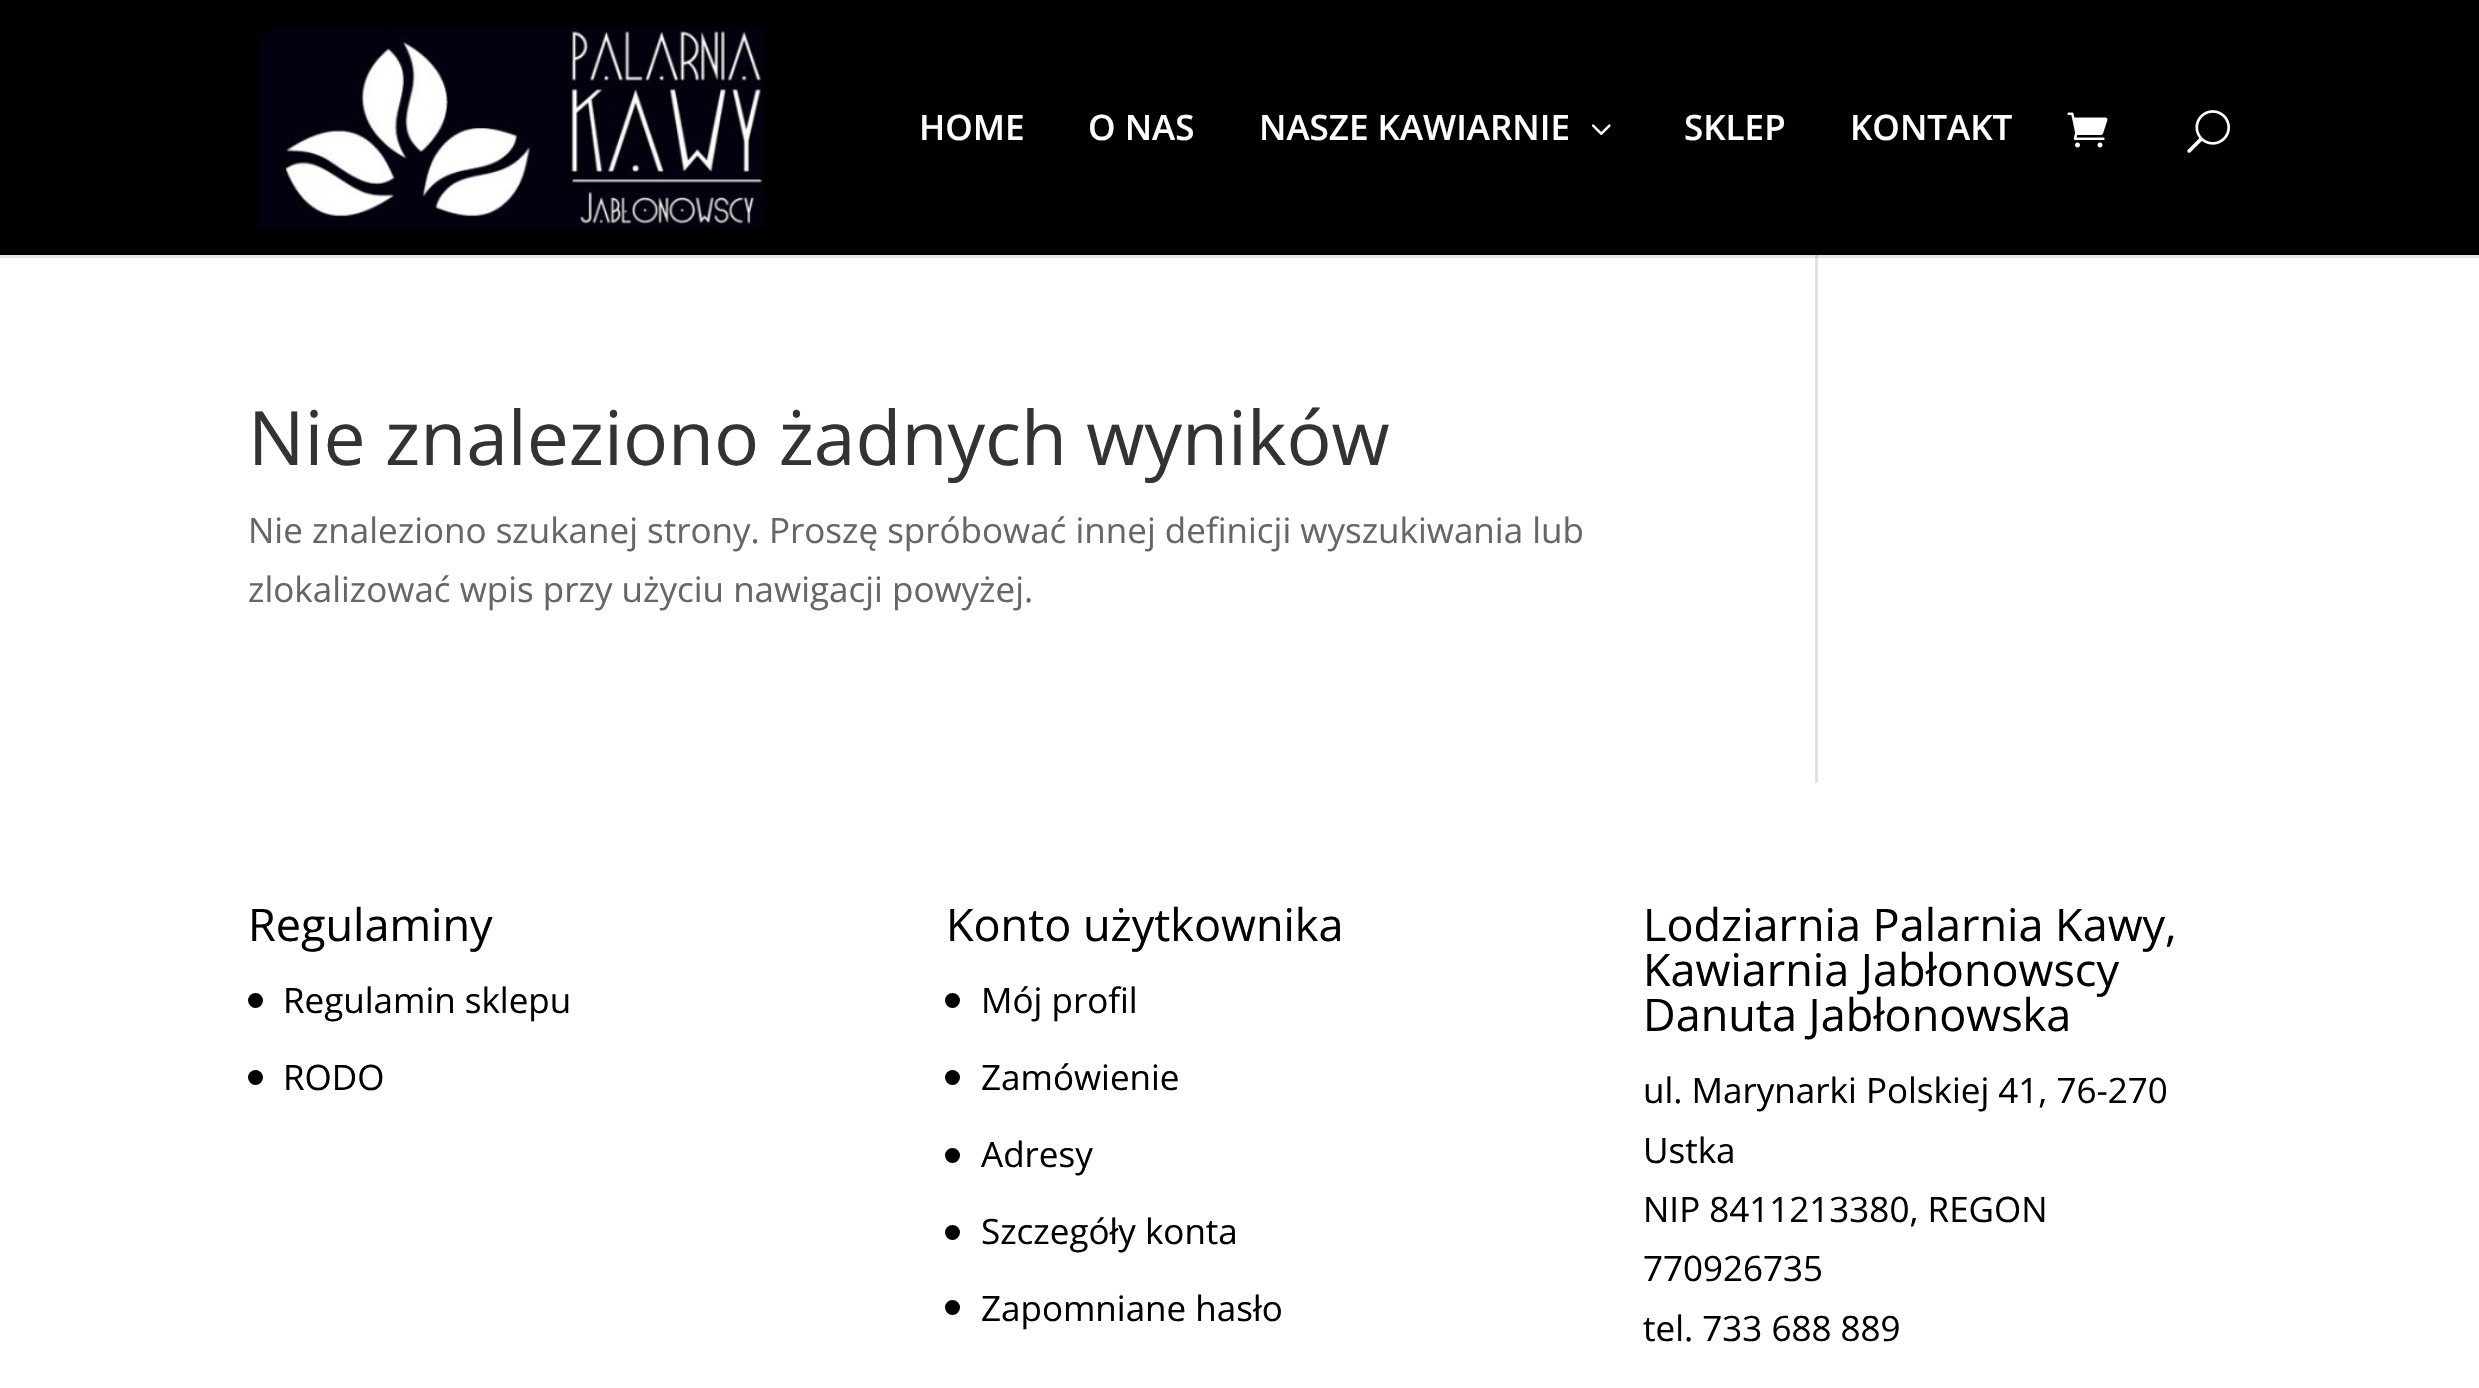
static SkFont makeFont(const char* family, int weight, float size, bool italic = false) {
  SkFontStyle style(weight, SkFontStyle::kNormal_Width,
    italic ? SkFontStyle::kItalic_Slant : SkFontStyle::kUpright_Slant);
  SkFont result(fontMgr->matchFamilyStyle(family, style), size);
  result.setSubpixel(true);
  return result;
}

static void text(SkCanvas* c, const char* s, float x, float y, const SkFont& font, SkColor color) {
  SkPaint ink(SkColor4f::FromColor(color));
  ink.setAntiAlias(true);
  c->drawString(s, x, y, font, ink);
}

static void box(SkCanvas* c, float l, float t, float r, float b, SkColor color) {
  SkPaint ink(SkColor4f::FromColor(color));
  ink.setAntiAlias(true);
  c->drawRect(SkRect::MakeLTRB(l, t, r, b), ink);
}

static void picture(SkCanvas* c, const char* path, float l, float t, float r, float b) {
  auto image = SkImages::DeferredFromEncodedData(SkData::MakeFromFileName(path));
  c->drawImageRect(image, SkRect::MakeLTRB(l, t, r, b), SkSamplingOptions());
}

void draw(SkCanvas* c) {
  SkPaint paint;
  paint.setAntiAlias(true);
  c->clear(0xffffffff);
  box(c, 0, 255, 2479, 258, 0xffe6e6e6);
  box(c, 0, 0, 2479, 255, 0xff000000);
  picture(c, "img_01.png", 257, 27, 765, 228);
  SkFont face1 = makeFont("Open Sans", 600, 35);
  text(c, "HOME", 919, 140, face1, 0xffffffff);
  text(c, "O NAS", 1088, 140, face1, 0xffffffff);
  text(c, "NASZE KAWIARNIE", 1259, 140, face1, 0xffffffff);
  picture(c, "img_02.png", 1591, 124, 1611, 135);
  text(c, "SKLEP", 1684, 140, face1, 0xffffffff);
  text(c, "KONTAKT", 1850, 140, face1, 0xffffffff);
  picture(c, "img_03.png", 2067, 112, 2108, 148);
  picture(c, "img_04.png", 2187, 110, 2230, 153);
  SkFont face2 = makeFont("Open Sans", 400, 75);
  text(c, "Nie znaleziono żadnych wyników", 248, 465, face2, 0xff333333);
  SkFont face3 = makeFont("Open Sans", 400, 35);
  text(c, "Nie znaleziono szukanej strony. Proszę spróbować innej definicji wyszukiwania lub", 248, 543, face3, 0xff666666);
  text(c, "zlokalizować wpis przy użyciu nawigacji powyżej.", 248, 602, face3, 0xff666666);
  box(c, 1815, 255, 1818, 783, 0xffe2e2e2);
  box(c, 1815, 255, 1818, 258, 0xffcbcbcb);
  SkFont face4 = makeFont("Open Sans", 400, 45);
  text(c, "Regulaminy", 248, 941, face4, 0xff000000);
  paint.setColor(0xff000000);
  c->drawCircle(255.5f, 1000.5f, 7.5f, paint);
  text(c, "Regulamin sklepu", 283, 1013, face3, 0xff000000);
  c->drawCircle(255.5f, 1077.5f, 7.5f, paint);
  text(c, "RODO", 283, 1090, face3, 0xff000000);
  text(c, "Konto użytkownika", 946, 941, face4, 0xff000000);
  c->drawCircle(952.5f, 1000.5f, 7.5f, paint);
  text(c, "Mój profil", 981, 1013, face3, 0xff000000);
  c->drawCircle(952.5f, 1077.5f, 7.5f, paint);
  text(c, "Zamówienie", 981, 1090, face3, 0xff000000);
  c->drawCircle(952.5f, 1155.5f, 7.5f, paint);
  text(c, "Adresy", 981, 1167, face3, 0xff000000);
  c->drawCircle(952.5f, 1232.5f, 7.5f, paint);
  text(c, "Szczegóły konta", 981, 1244, face3, 0xff000000);
  c->drawCircle(952.5f, 1307.5f, 7.5f, paint);
  text(c, "Zapomniane hasło", 981, 1321, face3, 0xff000000);
  text(c, "Lodziarnia Palarnia Kawy,", 1643, 941, face4, 0xff000000);
  text(c, "Kawiarnia Jabłonowscy", 1643, 986, face4, 0xff000000);
  text(c, "Danuta Jabłonowska", 1643, 1031, face4, 0xff000000);
  text(c, "ul. Marynarki Polskiej 41, 76-270", 1643, 1103, face3, 0xff000000);
  text(c, "Ustka", 1643, 1163, face3, 0xff000000);
  text(c, "NIP 8411213380, REGON", 1643, 1222, face3, 0xff000000);
  text(c, "770926735", 1643, 1281, face3, 0xff000000);
  text(c, "tel. 733 688 889", 1643, 1341, face3, 0xff000000);
}
